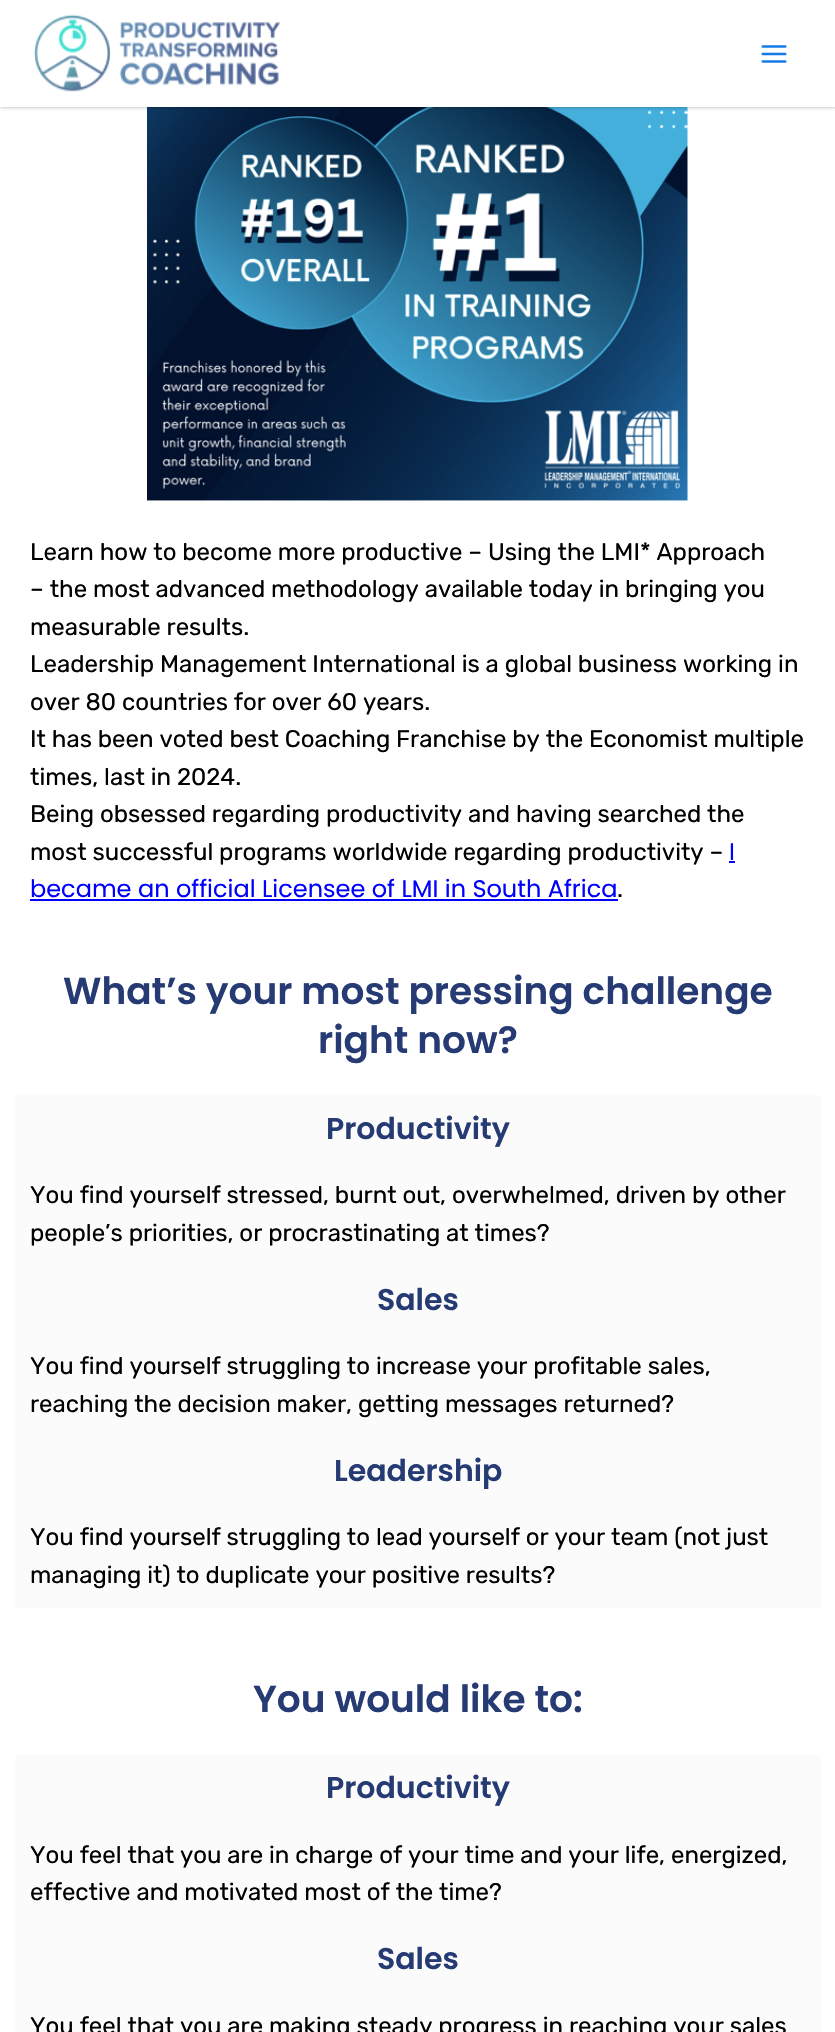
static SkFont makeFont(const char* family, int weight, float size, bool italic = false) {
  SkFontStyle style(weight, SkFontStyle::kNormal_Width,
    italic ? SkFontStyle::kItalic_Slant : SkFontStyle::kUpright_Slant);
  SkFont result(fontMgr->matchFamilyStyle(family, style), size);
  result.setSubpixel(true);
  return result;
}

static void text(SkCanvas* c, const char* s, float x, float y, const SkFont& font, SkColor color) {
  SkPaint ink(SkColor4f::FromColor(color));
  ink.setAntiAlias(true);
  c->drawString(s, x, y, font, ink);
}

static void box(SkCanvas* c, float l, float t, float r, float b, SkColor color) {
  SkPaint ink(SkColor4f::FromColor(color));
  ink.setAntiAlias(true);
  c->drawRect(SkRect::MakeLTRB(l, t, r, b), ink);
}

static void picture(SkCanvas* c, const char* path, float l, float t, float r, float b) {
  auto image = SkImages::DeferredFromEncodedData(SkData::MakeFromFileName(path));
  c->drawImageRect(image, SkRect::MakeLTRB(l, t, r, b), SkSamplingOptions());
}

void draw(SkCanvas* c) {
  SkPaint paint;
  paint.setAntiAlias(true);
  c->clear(0xffffffff);
  picture(c, "img_03.png", 147, 107, 688, 501);
  paint.setColor(0x33000000);
  paint.setMaskFilter(SkMaskFilter::MakeBlur(kNormal_SkBlurStyle, 1.5f));
  c->drawRect(SkRect::MakeLTRB(0, 2, 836, 108), paint);
  paint.setMaskFilter(nullptr);
  box(c, 0, 0, 835, 107, 0xffffffff);
  picture(c, "img_01.png", 33, 14, 280, 92);
  picture(c, "img_02.png", 761, 45, 787, 63);
  SkFont face1 = makeFont("Rubik", 400, 24);
  text(c, "Learn how to become more productive – Using the LMI* Approach", 30, 560, face1, 0xff000000);
  text(c, "– the most advanced methodology available today in bringing you", 30, 597, face1, 0xff000000);
  text(c, "measurable results.", 30, 635, face1, 0xff000000);
  text(c, "Leadership Management International is a global business working in", 30, 672, face1, 0xff000000);
  text(c, "over 80 countries for over 60 years.", 30, 710, face1, 0xff000000);
  text(c, "It has been voted best Coaching Franchise by the Economist multiple", 30, 747, face1, 0xff000000);
  text(c, "times, last in 2024.", 30, 785, face1, 0xff000000);
  text(c, "Being obsessed regarding productivity and having searched the", 30, 822, face1, 0xff000000);
  text(c, "most successful programs worldwide regarding productivity –", 30, 860, face1, 0xff000000);
  SkFont face2 = makeFont("Poppins", 400, 24);
  text(c, "I", 729, 860, face2, 0xff0000ff);
  box(c, 729, 861, 735, 863, 0xff0000ff);
  text(c, "became an official Licensee of LMI in South Africa", 30, 897, face2, 0xff0000ff);
  box(c, 30, 899, 618, 901, 0xff0000ff);
  text(c, ".", 617, 897, face1, 0xff000000);
  SkFont face3 = makeFont("Poppins", 600, 37.5f);
  text(c, "What’s your most pressing challenge", 63, 1004, face3, 0xff263b74);
  text(c, "right now?", 318, 1053, face3, 0xff263b74);
  box(c, 15, 1095, 821, 1608, 0xfffbfbfb);
  SkFont face4 = makeFont("Poppins", 600, 30);
  text(c, "Productivity", 326, 1139, face4, 0xff263b74);
  text(c, "You find yourself stressed, burnt out, overwhelmed, driven by other", 30, 1203, face1, 0xff000000);
  text(c, "people’s priorities, or procrastinating at times?", 30, 1241, face1, 0xff000000);
  text(c, "Sales", 377, 1310, face4, 0xff263b74);
  text(c, "You find yourself struggling to increase your profitable sales,", 30, 1374, face1, 0xff000000);
  text(c, "reaching the decision maker, getting messages returned?", 30, 1412, face1, 0xff000000);
  text(c, "Leadership", 334, 1481, face4, 0xff263b74);
  text(c, "You find yourself struggling to lead yourself or your team (not just", 30, 1545, face1, 0xff000000);
  text(c, "managing it) to duplicate your positive results?", 30, 1583, face1, 0xff000000);
  text(c, "You would like to:", 253, 1712, face3, 0xff263b74);
  box(c, 15, 1755, 821, 2032, 0xfffbfbfb);
  text(c, "Productivity", 326, 1798, face4, 0xff263b74);
  text(c, "You feel that you are in charge of your time and your life, energized,", 30, 1863, face1, 0xff000000);
  text(c, "effective and motivated most of the time?", 30, 1900, face1, 0xff000000);
  text(c, "Sales", 377, 1969, face4, 0xff263b74);
  text(c, "You feel that you are making steady progress in reaching your sales", 30, 2034, face1, 0xff000000);
}
